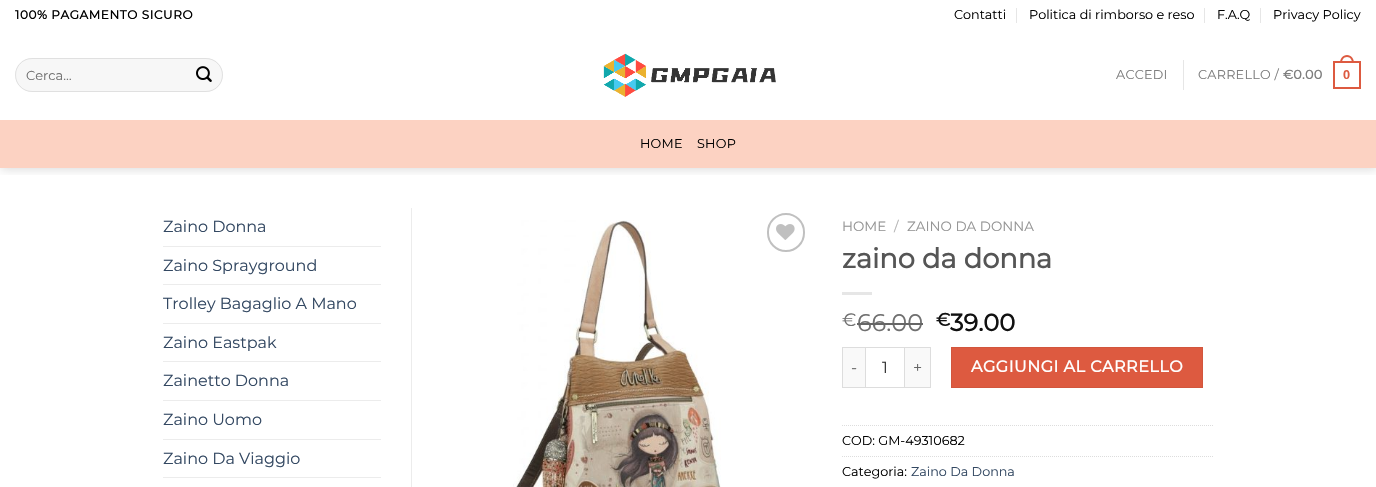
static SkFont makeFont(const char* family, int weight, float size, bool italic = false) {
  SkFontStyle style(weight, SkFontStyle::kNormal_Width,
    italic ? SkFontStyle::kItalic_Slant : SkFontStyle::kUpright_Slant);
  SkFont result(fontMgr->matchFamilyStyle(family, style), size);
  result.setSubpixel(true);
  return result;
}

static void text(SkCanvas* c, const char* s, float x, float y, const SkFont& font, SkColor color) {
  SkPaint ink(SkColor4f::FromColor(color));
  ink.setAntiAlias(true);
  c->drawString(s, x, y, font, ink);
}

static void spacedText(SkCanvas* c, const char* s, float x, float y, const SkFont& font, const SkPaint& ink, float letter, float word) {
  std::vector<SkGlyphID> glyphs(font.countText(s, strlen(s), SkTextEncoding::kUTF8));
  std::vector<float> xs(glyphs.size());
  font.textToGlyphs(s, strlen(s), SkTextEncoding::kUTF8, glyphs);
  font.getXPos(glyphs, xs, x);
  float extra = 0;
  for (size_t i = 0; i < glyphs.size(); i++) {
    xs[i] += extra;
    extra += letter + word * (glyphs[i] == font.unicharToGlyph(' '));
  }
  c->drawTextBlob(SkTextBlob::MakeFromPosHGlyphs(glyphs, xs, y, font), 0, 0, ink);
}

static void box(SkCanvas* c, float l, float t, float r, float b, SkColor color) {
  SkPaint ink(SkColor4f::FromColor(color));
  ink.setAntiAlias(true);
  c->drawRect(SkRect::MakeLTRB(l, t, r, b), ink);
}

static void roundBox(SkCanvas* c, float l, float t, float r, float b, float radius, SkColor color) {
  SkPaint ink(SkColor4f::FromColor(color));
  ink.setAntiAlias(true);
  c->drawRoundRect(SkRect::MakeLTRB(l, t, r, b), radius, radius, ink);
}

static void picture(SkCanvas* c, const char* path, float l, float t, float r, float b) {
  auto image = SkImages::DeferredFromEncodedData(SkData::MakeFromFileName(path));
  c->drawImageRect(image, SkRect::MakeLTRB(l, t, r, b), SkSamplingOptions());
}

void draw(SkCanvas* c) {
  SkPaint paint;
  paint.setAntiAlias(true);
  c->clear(0xffffffff);
  c->save();
  c->clipRect(SkRect::MakeLTRB(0, 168, 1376, 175));
  paint.setColor(0x26000000);
  paint.setMaskFilter(SkMaskFilter::MakeBlur(kNormal_SkBlurStyle, 5));
  c->drawRect(SkRect::MakeLTRB(1, 1, 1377, 169), paint);
  paint.setMaskFilter(nullptr);
  c->restore();
  SkFont face1 = makeFont("Montserrat", 700, 12);
  paint.setColor(0xff000000);
  spacedText(c, "100% PAGAMENTO SICURO", 15, 19, face1, paint, 0.6f, 0);
  SkFont face2 = makeFont("Montserrat", 400, 12.75f);
  text(c, "Contatti", 954, 19, face2, 0xff000000);
  box(c, 1016, 8, 1017, 23, 0xffe6e6e6);
  text(c, "Politica di rimborso e reso", 1029, 19, face2, 0xff000000);
  box(c, 1204, 8, 1205, 23, 0xffe6e6e6);
  text(c, "F.A.Q", 1217, 19, face2, 0xff000000);
  box(c, 1260, 8, 1261, 23, 0xffe6e6e6);
  text(c, "Privacy Policy", 1273, 19, face2, 0xff000000);
  roundBox(c, 15, 58, 223, 92, 17, 0xfff7f7f7);
  paint.setStyle(SkPaint::kStroke_Style);
  paint.setStrokeWidth(1);
  paint.setColor(0x17000000);
  c->drawRoundRect(SkRect::MakeLTRB(15.5f, 58.5f, 222.5f, 91.5f), 16.5f, 16.5f, paint);
  SkFont face3 = makeFont("Montserrat", 400, 13);
  text(c, "Cerca…", 26, 80, face3, 0xff707070);
  picture(c, "img_01.png", 196, 66, 212, 82);
  picture(c, "img_02.png", 603, 53, 776, 97);
  paint.setStyle(SkPaint::kFill_Style);
  paint.setColor(0xff7d7d7d);
  spacedText(c, "ACCEDI", 1116, 79, face2, paint, 0.25f, 0);
  box(c, 1183, 60, 1184, 90, 0xffe6e6e6);
  spacedText(c, "CARRELLO /", 1198, 79, face2, paint, 0.25f, 0);
  SkFont face4 = makeFont("Montserrat", 700, 12.75f);
  spacedText(c, "€0.00", 1283, 79, face4, paint, 0.25f, 0);
  paint.setStyle(SkPaint::kStroke_Style);
  paint.setStrokeWidth(2);
  paint.setColor(0xffdd5a40);
  c->drawRect(SkRect::MakeLTRB(1334, 62, 1360, 88), paint);
  paint.setStyle(SkPaint::kFill_Style);
  c->drawPath(SkPathBuilder(SkPathFillType::kEvenOdd).moveTo(1347, 55).cubicTo(1351.5f, 55, 1354, 59, 1354, 63).lineTo(1340, 63).cubicTo(1340, 59, 1342.5f, 55, 1347, 55).close().moveTo(1347, 57).cubicTo(1350.5f, 57, 1352, 60, 1352, 63).lineTo(1342, 63).cubicTo(1342, 60, 1343.5f, 57, 1347, 57).close().detach(), paint);
  SkFont face5 = makeFont("Liberation Sans", 700, 12.75f);
  spacedText(c, "0", 1343, 79, face5, paint, 0.25f, 0);
  box(c, 0, 120, 1376, 168, 0xfffcd2c2);
  paint.setColor(0xff000000);
  spacedText(c, "HOME", 640, 148, face2, paint, 0.25f, 0);
  spacedText(c, "SHOP", 697, 148, face2, paint, 0.25f, 0);
  SkFont face6 = makeFont("Montserrat", 400, 16);
  text(c, "Zaino Donna", 163, 232, face6, 0xff334862);
  box(c, 163, 246, 381, 247, 0xffececec);
  text(c, "Zaino Sprayground", 163, 271, face6, 0xff334862);
  box(c, 163, 284, 381, 285, 0xffececec);
  text(c, "Trolley Bagaglio A Mano", 163, 309, face6, 0xff334862);
  box(c, 163, 323, 381, 324, 0xffececec);
  text(c, "Zaino Eastpak", 163, 348, face6, 0xff334862);
  box(c, 163, 361, 381, 362, 0xffececec);
  text(c, "Zainetto Donna", 163, 386, face6, 0xff334862);
  box(c, 163, 400, 381, 401, 0xffececec);
  text(c, "Zaino Uomo", 163, 425, face6, 0xff334862);
  box(c, 163, 439, 381, 440, 0xffececec);
  text(c, "Zaino Da Viaggio", 163, 464, face6, 0xff334862);
  box(c, 163, 477, 381, 478, 0xffececec);
  box(c, 411, 208, 412, 487, 0xffececec);
  picture(c, "img_03.png", 513, 220, 721, 487);
  paint.setStyle(SkPaint::kStroke_Style);
  paint.setColor(0xffc0c0c0);
  c->drawRoundRect(SkRect::MakeLTRB(768, 214, 804, 251), 18, 18, paint);
  picture(c, "img_04.png", 776, 224, 795, 240);
  SkFont face7 = makeFont("Montserrat", 400, 13.5f);
  text(c, "HOME", 842, 231, face7, 0xff949494);
  text(c, "/", 894, 231, face7, 0xffb2b2b2);
  text(c, "ZAINO DA DONNA", 907, 231, face7, 0xff949494);
  SkFont face8 = makeFont("Montserrat", 700, 27.25f);
  text(c, "zaino da donna", 842, 268, face8, 0xff555555);
  box(c, 842, 292, 872, 295, 0xffe6e6e6);
  SkFont face9 = makeFont("Montserrat", 400, 18);
  text(c, "€", 842, 326, face9, 0xff707070);
  SkFont face10 = makeFont("Montserrat", 400, 24);
  text(c, "66.00", 857, 331, face10, 0xff707070);
  box(c, 857, 323, 923, 325, 0xff666666);
  SkFont face11 = makeFont("Montserrat", 700, 18);
  text(c, "€", 936, 326, face11, 0xff111111);
  SkFont face12 = makeFont("Montserrat", 700, 24);
  text(c, "39.00", 950, 331, face12, 0xff111111);
  box(c, 843, 348, 865, 387, 0xfff9f9f9);
  box(c, 842, 347, 865, 348, 0xffdddddd);
  box(c, 842, 387, 865, 388, 0xffdddddd);
  box(c, 842, 347, 843, 388, 0xffdddddd);
  text(c, "-", 851, 373, face6, 0xff666666);
  paint.setStrokeWidth(1);
  paint.setColor(0xffdddddd);
  c->drawRect(SkRect::MakeLTRB(865.5f, 347.5f, 904.5f, 387.5f), paint);
  text(c, "1", 882, 373, face6, 0xff333333);
  box(c, 905, 348, 930, 387, 0xfff9f9f9);
  box(c, 905, 347, 931, 348, 0xffdddddd);
  box(c, 930, 347, 931, 388, 0xffdddddd);
  box(c, 905, 387, 931, 388, 0xffdddddd);
  text(c, "+", 913, 373, face6, 0xff666666);
  paint.setStyle(SkPaint::kFill_Style);
  paint.setColor(0xffdd5a40);
  c->drawRect(SkRect::MakeLTRB(951.5f, 347.5f, 1202.5f, 387.5f), paint);
  paint.setStyle(SkPaint::kStroke_Style);
  paint.setColor(0xffd2563d);
  c->drawRect(SkRect::MakeLTRB(951.5f, 347.5f, 1202.5f, 387.5f), paint);
  SkFont face13 = makeFont("Montserrat", 700, 16);
  paint.setStyle(SkPaint::kFill_Style);
  paint.setColor(0xffffffff);
  spacedText(c, "AGGIUNGI AL CARRELLO", 971, 372, face13, paint, 0.5f, 0);
  paint.setStyle(SkPaint::kStroke_Style);
  paint.setColor(0xffdddddd);
  paint.setPathEffect(SkDashPathEffect::Make({{1, 1}}, 0));
  c->drawPath(SkPathBuilder().moveTo(842, 425.5f).lineTo(1213, 425.5f).detach(), paint);
  paint.setPathEffect(nullptr);
  text(c, "COD: GM-49310682", 842, 445, face2, 0xff000000);
  paint.setPathEffect(SkDashPathEffect::Make({{1, 1}}, 0));
  c->drawPath(SkPathBuilder().moveTo(842, 456.5f).lineTo(1213, 456.5f).detach(), paint);
  paint.setPathEffect(nullptr);
  text(c, "Categoria:", 842, 476, face2, 0xff000000);
  text(c, "Zaino Da Donna", 911, 476, face2, 0xff334862);
}
